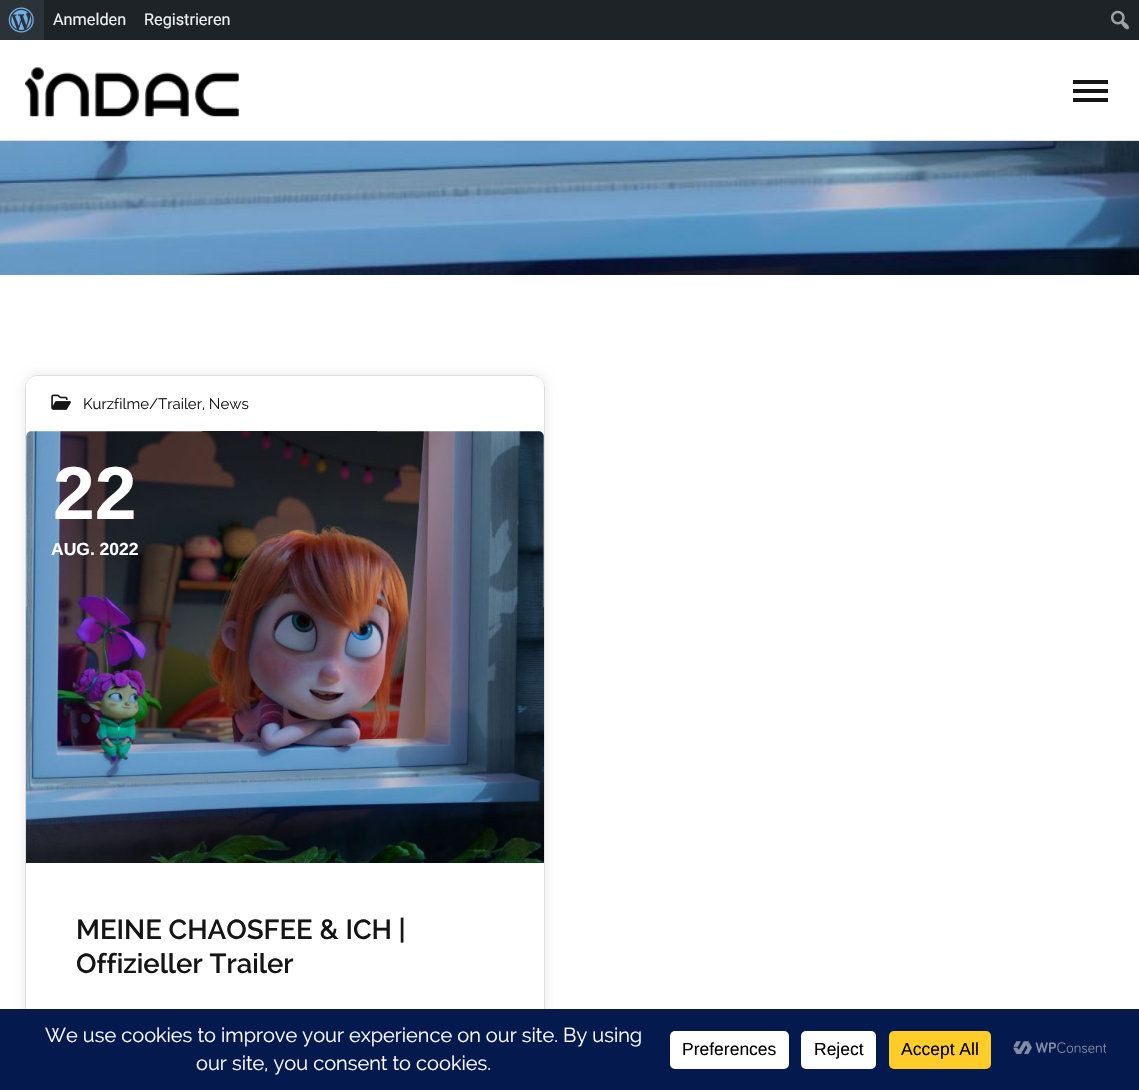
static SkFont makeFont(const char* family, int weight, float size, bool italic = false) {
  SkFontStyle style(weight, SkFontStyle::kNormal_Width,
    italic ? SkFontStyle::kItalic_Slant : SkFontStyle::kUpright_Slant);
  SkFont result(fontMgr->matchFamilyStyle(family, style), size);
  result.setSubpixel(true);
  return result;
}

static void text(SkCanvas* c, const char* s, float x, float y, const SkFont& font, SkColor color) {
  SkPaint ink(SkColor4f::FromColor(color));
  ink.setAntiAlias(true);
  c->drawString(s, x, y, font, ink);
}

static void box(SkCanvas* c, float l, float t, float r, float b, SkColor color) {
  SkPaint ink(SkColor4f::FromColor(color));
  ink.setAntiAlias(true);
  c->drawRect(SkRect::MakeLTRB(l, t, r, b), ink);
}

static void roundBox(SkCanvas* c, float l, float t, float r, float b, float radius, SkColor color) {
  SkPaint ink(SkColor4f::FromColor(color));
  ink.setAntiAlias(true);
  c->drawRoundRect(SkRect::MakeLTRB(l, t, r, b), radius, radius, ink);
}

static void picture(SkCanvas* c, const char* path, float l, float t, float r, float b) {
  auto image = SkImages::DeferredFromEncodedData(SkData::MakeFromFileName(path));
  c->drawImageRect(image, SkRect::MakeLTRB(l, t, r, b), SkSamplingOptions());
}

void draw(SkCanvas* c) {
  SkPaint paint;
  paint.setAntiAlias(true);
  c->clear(0xffffffff);
  box(c, 44, 0, 1139, 40, 0xff1d2327);
  box(c, 0, 0, 44, 40, 0xff2c3338);
  picture(c, "img_01.png", 8, 7, 34, 33);
  SkFont face1 = makeFont("Roboto", 400, 16.25f);
  text(c, "Anmelden", 53, 25, face1, 0xfff0f0f1);
  text(c, "Registrieren", 144, 25, face1, 0xfff0f0f1);
  picture(c, "img_02.png", 1111, 10, 1129, 30);
  box(c, 0, 140, 1139, 141, 0xffdddddd);
  picture(c, "img_03.png", 25, 67, 239, 117);
  box(c, 1073, 89, 1108, 93, 0xff151515);
  box(c, 1073, 80, 1108, 84, 0xff151515);
  box(c, 1073, 98, 1108, 102, 0xff151515);
  picture(c, "img_04.png", 0, 141, 1139, 275);
  paint.setColor(0x17000000);
  paint.setMaskFilter(SkMaskFilter::MakeBlur(kNormal_SkBlurStyle, 6));
  c->drawRoundRect(SkRect::MakeLTRB(25, 375, 545, 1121), 13, 13, paint);
  paint.setMaskFilter(nullptr);
  paint.setColor(0xffffffff);
  c->drawRoundRect(SkRect::MakeLTRB(25.5f, 375.5f, 544.5f, 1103.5f), 12.5f, 12.5f, paint);
  paint.setStyle(SkPaint::kStroke_Style);
  paint.setStrokeWidth(1);
  paint.setColor(0xffdddddd);
  c->drawRoundRect(SkRect::MakeLTRB(25.5f, 375.5f, 544.5f, 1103.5f), 12.5f, 12.5f, paint);
  paint.setStyle(SkPaint::kFill_Style);
  paint.setColor(0xffffffff);
  c->drawPath(SkPathBuilder().moveTo(37, 376).lineTo(533, 376).cubicTo(539, 376, 544, 381, 544, 387).lineTo(544, 431).lineTo(26, 431).lineTo(26, 387).cubicTo(26, 381, 31, 376, 37, 376).close().detach(), paint);
  picture(c, "img_05.png", 51, 394, 71, 410);
  SkFont face2 = makeFont("Raleway", 400, 15);
  text(c, "Kurzfilme/Trailer, News", 83, 409, face2, 0xff151515);
  picture(c, "img_06.png", 26, 431, 544, 863);
  SkFont face3 = makeFont("Liberation Sans", 700, 75);
  text(c, "22", 53, 519, face3, 0xffffffff);
  SkFont face4 = makeFont("Liberation Sans", 700, 17.5f);
  text(c, "AUG. 2022", 51, 555, face4, 0xffffffff);
  SkFont face5 = makeFont("Raleway", 600, 27.5f);
  text(c, "MEINE CHAOSFEE & ICH |", 76, 939, face5, 0xff151515);
  text(c, "Offizieller Trailer", 76, 973, face5, 0xff151515);
  box(c, 0, 1009, 1139, 1090, 0xff04194e);
  SkFont face6 = makeFont("Raleway", 400, 20);
  text(c, "We use cookies to improve your experience on our site. By using", 45, 1042, face6, 0xffffffff);
  text(c, "our site, you consent to cookies.", 196, 1070, face6, 0xffffffff);
  roundBox(c, 670, 1031, 789, 1069, 5, 0xffffffff);
  SkFont face7 = makeFont("Liberation Sans", 400, 17.5f);
  text(c, "Preferences", 682, 1055, face7, 0xff000000);
  roundBox(c, 801, 1031, 876, 1069, 5, 0xffffffff);
  text(c, "Reject", 814, 1055, face7, 0xff000000);
  roundBox(c, 889, 1031, 991, 1069, 5, 0xffffcd2a);
  text(c, "Accept All", 901, 1055, face7, 0xff000000);
  picture(c, "img_07.png", 1013, 1041, 1107, 1054);
}
